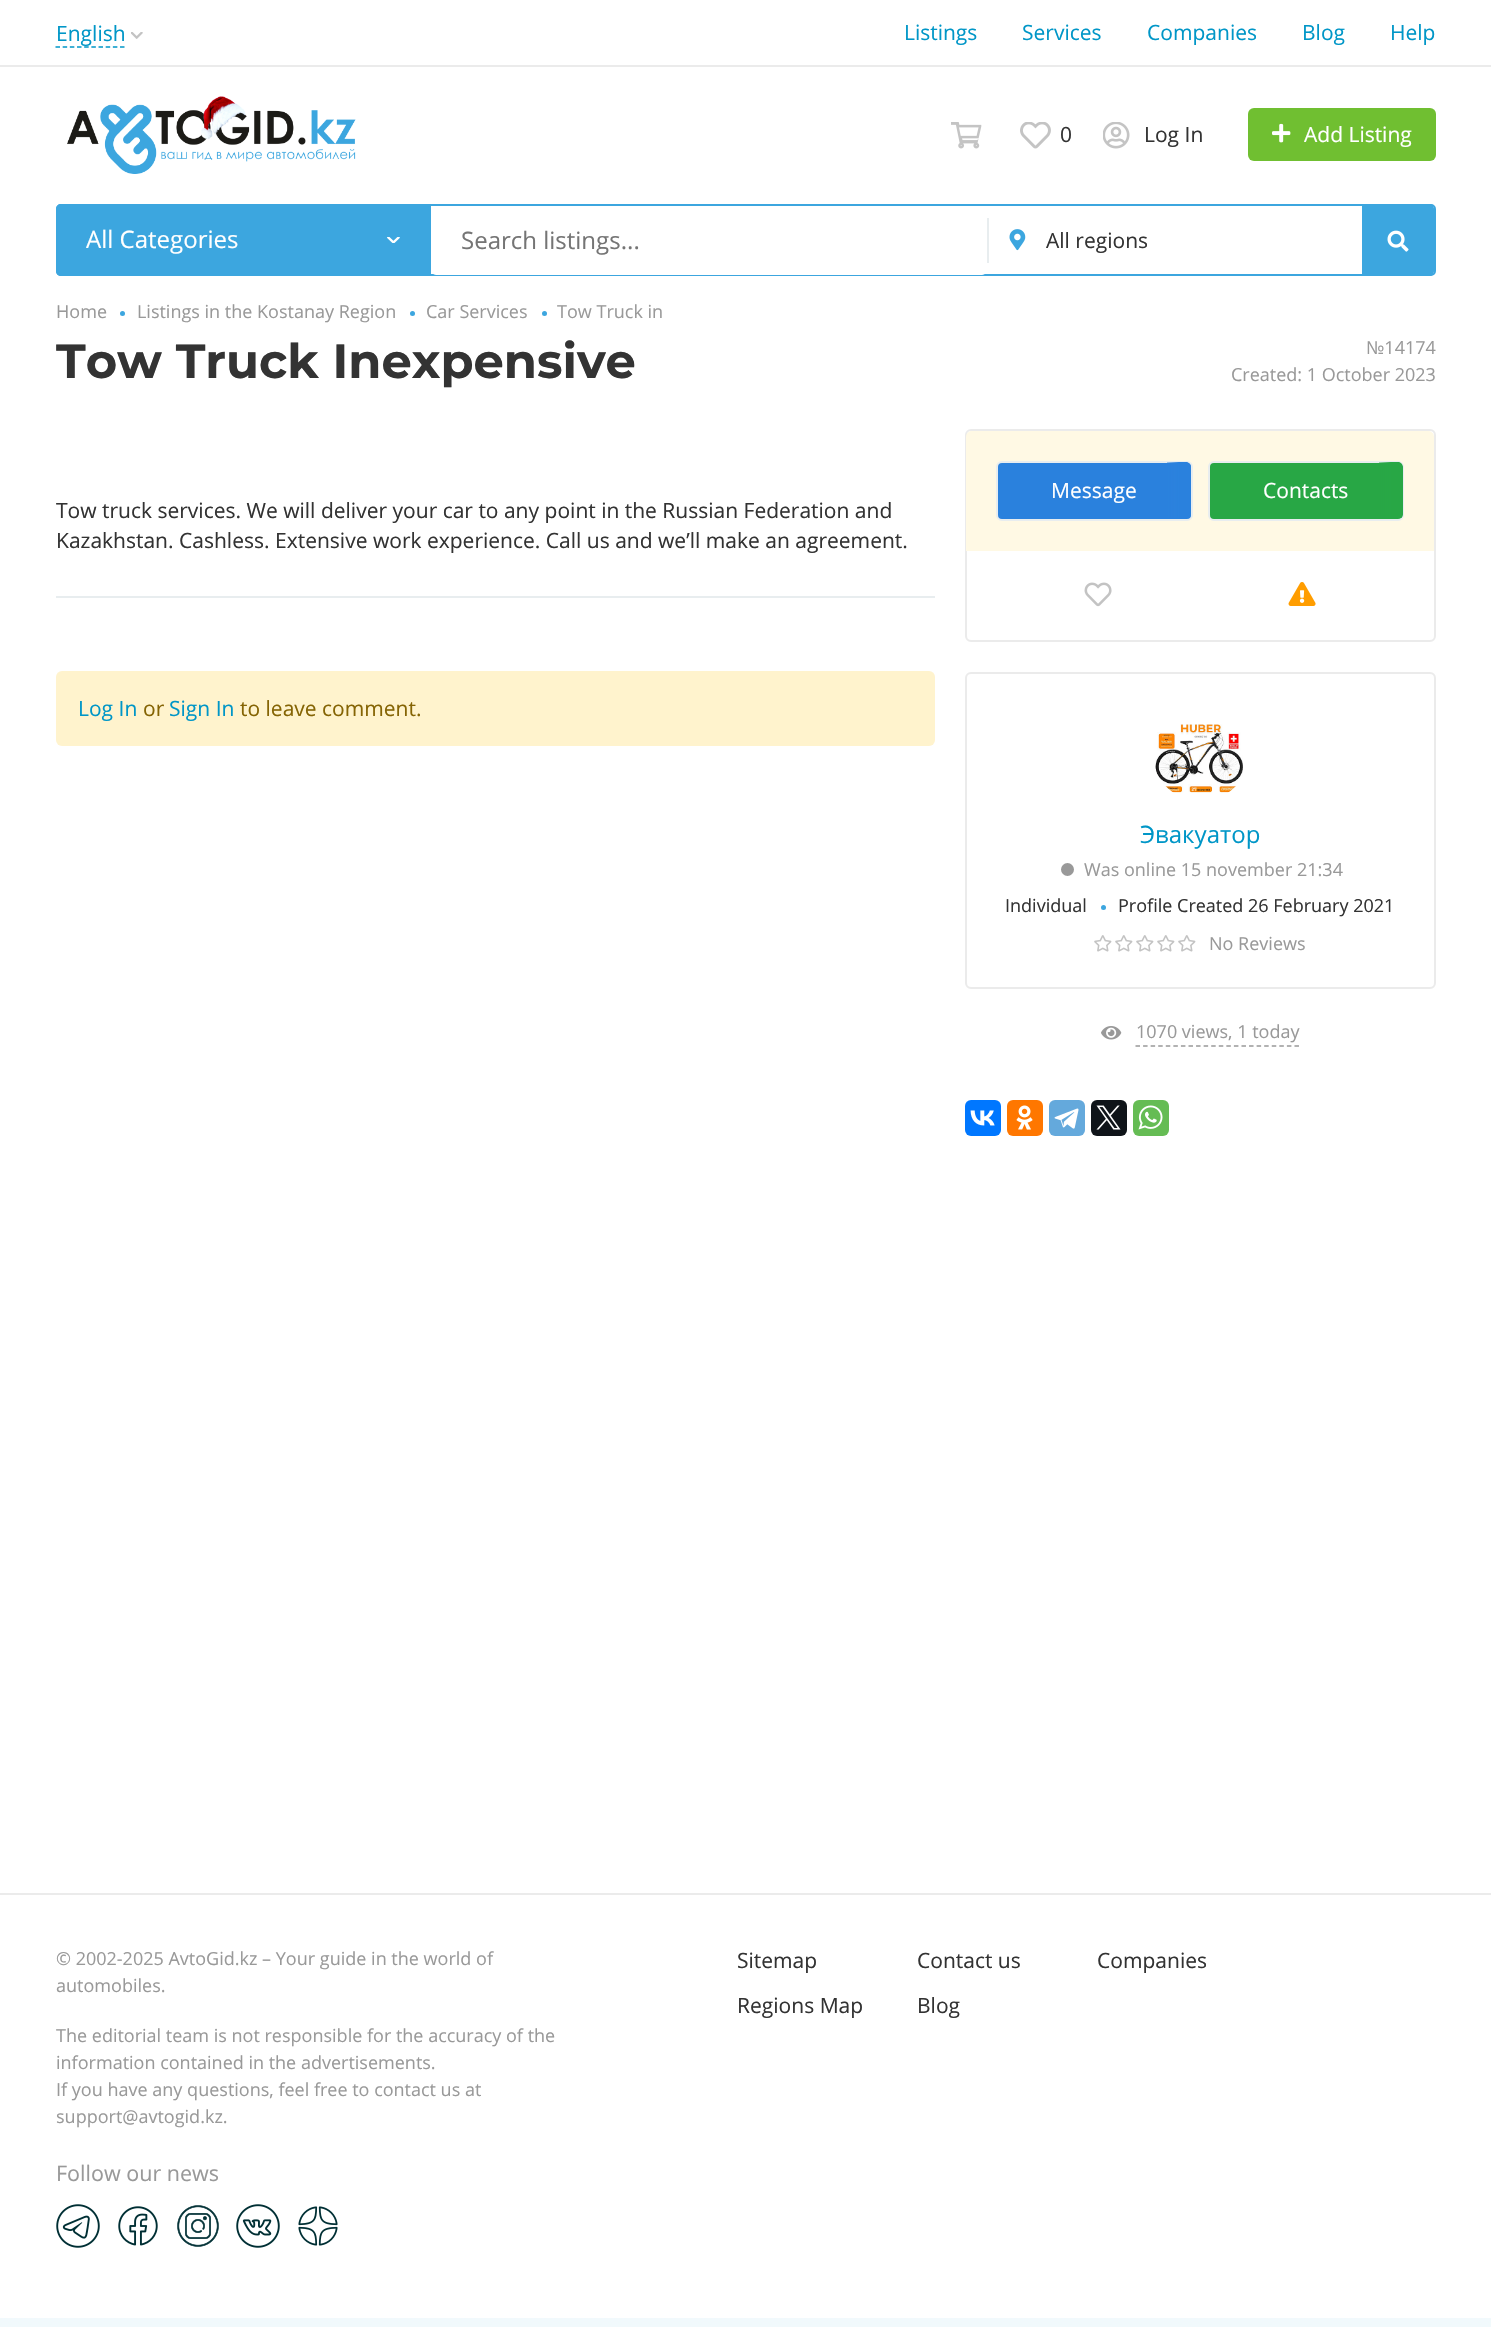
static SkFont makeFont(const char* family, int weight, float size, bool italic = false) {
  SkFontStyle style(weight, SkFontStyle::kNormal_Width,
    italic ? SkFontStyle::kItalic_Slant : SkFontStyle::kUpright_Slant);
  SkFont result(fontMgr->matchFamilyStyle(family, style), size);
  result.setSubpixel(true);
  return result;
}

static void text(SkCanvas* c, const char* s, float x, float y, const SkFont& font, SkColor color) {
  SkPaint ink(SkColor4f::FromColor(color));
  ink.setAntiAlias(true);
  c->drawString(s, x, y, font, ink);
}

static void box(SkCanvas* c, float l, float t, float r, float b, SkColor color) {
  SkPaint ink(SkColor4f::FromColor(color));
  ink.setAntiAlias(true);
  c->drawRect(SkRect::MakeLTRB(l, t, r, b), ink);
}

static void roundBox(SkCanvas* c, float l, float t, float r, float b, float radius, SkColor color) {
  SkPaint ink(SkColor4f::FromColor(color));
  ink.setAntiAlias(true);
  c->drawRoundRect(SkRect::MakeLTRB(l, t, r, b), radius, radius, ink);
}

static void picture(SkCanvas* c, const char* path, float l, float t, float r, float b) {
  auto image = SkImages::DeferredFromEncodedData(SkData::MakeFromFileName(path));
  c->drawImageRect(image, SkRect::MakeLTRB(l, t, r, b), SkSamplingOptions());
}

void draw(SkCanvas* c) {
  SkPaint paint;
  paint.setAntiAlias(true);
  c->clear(0xffffffff);
  box(c, 0, 65, 1491, 67, 0xffebebeb);
  paint.setStyle(SkPaint::kStroke_Style);
  paint.setStrokeWidth(1.5f);
  paint.setColor(0xff0096c7);
  paint.setPathEffect(SkDashPathEffect::Make({{4.5f, 2.67f}}, 0));
  c->drawPath(SkPathBuilder().moveTo(55.5f, 47).lineTo(124.5f, 47).detach(), paint);
  paint.setPathEffect(nullptr);
  SkFont face1 = makeFont("Open Sans", 400, 21);
  text(c, "English", 56, 41, face1, 0xff0096c7);
  picture(c, "img_01.png", 131, 32, 143, 39);
  text(c, "Listings", 904, 40, face1, 0xff0096c7);
  text(c, "Services", 1022, 40, face1, 0xff0096c7);
  text(c, "Companies", 1147, 40, face1, 0xff0096c7);
  text(c, "Blog", 1302, 40, face1, 0xff0096c7);
  text(c, "Help", 1390, 40, face1, 0xff0096c7);
  picture(c, "img_02.png", 67, 96, 356, 174);
  picture(c, "img_03.png", 951, 122, 982, 149);
  picture(c, "img_04.png", 1020, 122, 1051, 149);
  text(c, "0", 1060, 142, face1, 0xff333333);
  picture(c, "img_05.png", 1103, 122, 1130, 149);
  text(c, "Log In", 1144, 142, face1, 0xff333333);
  roundBox(c, 1248, 108, 1436, 161, 6, 0xff70bf31);
  picture(c, "img_06.png", 1272, 123, 1291, 143);
  text(c, "Add Listing", 1304, 142, face1, 0xffffffff);
  paint.setStrokeWidth(2);
  paint.setColor(0xff3ca6df);
  c->drawRoundRect(SkRect::MakeLTRB(57, 205, 1435, 275), 4, 4, paint);
  paint.setStyle(SkPaint::kFill_Style);
  c->drawPath(SkPathBuilder().moveTo(61, 204).lineTo(431, 204).lineTo(431, 276).lineTo(61, 276).cubicTo(58, 276, 56, 274, 56, 271).lineTo(56, 209).cubicTo(56, 206, 58, 204, 61, 204).close().detach(), paint);
  SkFont face2 = makeFont("Open Sans", 400, 24);
  text(c, "All Categories", 86, 248, face2, 0xffffffff);
  picture(c, "img_07.png", 387, 237, 400, 243);
  roundBox(c, 431, 206, 987, 275, 5, 0xffffffff);
  text(c, "Search listings...", 461, 249, face2, 0xff757575);
  box(c, 987, 218, 989, 263, 0xffe8edef);
  picture(c, "img_08.png", 1009, 229, 1026, 251);
  text(c, "All regions", 1046, 248, face1, 0xff333333);
  c->drawPath(SkPathBuilder().moveTo(1362, 204).lineTo(1429, 204).cubicTo(1432, 204, 1434, 206, 1434, 209).lineTo(1434, 271).cubicTo(1434, 274, 1432, 276, 1429, 276).lineTo(1362, 276).close().detach(), paint);
  picture(c, "img_09.png", 1387, 230, 1409, 252);
  SkFont face3 = makeFont("Open Sans", 400, 18);
  text(c, "Home", 56, 318, face3, 0xff999999);
  c->drawCircle(122.5f, 313.5f, 2.5f, paint);
  text(c, "Listings in the Kostanay Region", 137, 318, face3, 0xff999999);
  c->drawCircle(412.5f, 313.5f, 2.5f, paint);
  text(c, "Car Services", 426, 318, face3, 0xff999999);
  c->drawCircle(544.5f, 313.5f, 2.5f, paint);
  text(c, "Tow Truck in", 557, 318, face3, 0xff999999);
  c->save();
  c->clipRect(SkRect::MakeLTRB(56, 332, 1436, 392));
  SkFont face4 = makeFont("Montserrat", 700, 48);
  text(c, "Tow Truck Inexpensive", 56, 378, face4, 0xff333333);
  c->restore();
  text(c, "№14174", 1366, 354, face3, 0xff999999);
  text(c, "Created: 1 October 2023", 1231, 381, face3, 0xff999999);
  text(c, "Tow truck services. We will deliver your car to any point in the Russian Federation and", 56, 518, face1, 0xff333333);
  text(c, "Kazakhstan. Cashless. Extensive work experience. Call us and we’ll make an agreement.", 56, 548, face1, 0xff333333);
  box(c, 56, 596, 935, 598, 0xffe8edef);
  roundBox(c, 56, 671, 935, 746, 6, 0xfffff3cd);
  text(c, "Log In", 78, 716, face1, 0xff0096c7);
  text(c, "or", 143, 716, face1, 0xff856404);
  text(c, "Sign In", 169, 716, face1, 0xff0096c7);
  text(c, "to leave comment.", 240, 716, face1, 0xff856404);
  paint.setStyle(SkPaint::kStroke_Style);
  paint.setColor(0xffebebeb);
  c->drawRoundRect(SkRect::MakeLTRB(966, 430, 1435, 641), 5, 5, paint);
  paint.setStyle(SkPaint::kFill_Style);
  paint.setColor(0xfffff9e4);
  c->drawPath(SkPathBuilder().moveTo(972, 431).lineTo(1428, 431).cubicTo(1431.5f, 431, 1434, 433.5f, 1434, 437).lineTo(1434, 551).lineTo(966, 551).lineTo(966, 437).cubicTo(966, 433.5f, 968.5f, 431, 972, 431).close().detach(), paint);
  paint.setColor(0xff2a81dd);
  c->drawRoundRect(SkRect::MakeLTRB(997, 462, 1192, 520), 5, 5, paint);
  paint.setStyle(SkPaint::kStroke_Style);
  paint.setColor(0xffe8edef);
  c->drawRoundRect(SkRect::MakeLTRB(997, 462, 1192, 520), 5, 5, paint);
  text(c, "Message", 1051, 498, face1, 0xffffffff);
  c->save();
  c->clipPath(SkPathBuilder().moveTo(1003, 462).lineTo(1186, 462).cubicTo(1189, 462, 1191, 464, 1191, 467).lineTo(1191, 514).cubicTo(1191, 517, 1189, 519, 1186, 519).lineTo(1003, 519).cubicTo(1000, 519, 998, 517, 998, 514).lineTo(998, 467).cubicTo(998, 464, 1000, 462, 1003, 462).close().detach(), true);
  paint.setStyle(SkPaint::kFill_Style);
  {
    const SkColor colors[] = {0xff2a81dd, 0x002a81dd};
    const float stops[] = {0.38f, 1};
    const SkPoint ends[] = {{1191, 490}, {1159, 490}};
    paint.setShader(SkGradientShader::MakeLinear(ends, colors, stops, 2, SkTileMode::kClamp));
    paint.setAlpha(255);
  }
  c->drawPath(SkPathBuilder().moveTo(1167, 462).lineTo(1186, 462).cubicTo(1189, 462, 1191, 464, 1191, 467).lineTo(1191, 518).lineTo(1167, 518).close().detach(), paint);
  c->restore();
  paint.setShader(nullptr);
  paint.setColor(0xff28a745);
  c->drawRoundRect(SkRect::MakeLTRB(1209, 462, 1403, 520), 5, 5, paint);
  paint.setStyle(SkPaint::kStroke_Style);
  paint.setColor(0xffe8edef);
  c->drawRoundRect(SkRect::MakeLTRB(1209, 462, 1403, 520), 5, 5, paint);
  text(c, "Contacts", 1263, 498, face1, 0xffffffff);
  c->save();
  c->clipPath(SkPathBuilder().moveTo(1214, 462).lineTo(1398, 462).cubicTo(1401, 462, 1403, 464, 1403, 467).lineTo(1403, 514).cubicTo(1403, 517, 1401, 519, 1398, 519).lineTo(1214, 519).cubicTo(1211, 519, 1209, 517, 1209, 514).lineTo(1209, 467).cubicTo(1209, 464, 1211, 462, 1214, 462).close().detach(), true);
  paint.setStyle(SkPaint::kFill_Style);
  {
    const SkColor colors[] = {0xff28a745, 0x0028a745};
    const float stops[] = {0.38f, 1};
    const SkPoint ends[] = {{1403, 490}, {1371, 490}};
    paint.setShader(SkGradientShader::MakeLinear(ends, colors, stops, 2, SkTileMode::kClamp));
    paint.setAlpha(255);
  }
  c->drawPath(SkPathBuilder().moveTo(1379, 462).lineTo(1398, 462).cubicTo(1401, 462, 1403, 464, 1403, 467).lineTo(1403, 518).lineTo(1379, 518).close().detach(), paint);
  c->restore();
  picture(c, "img_10.png", 1084, 582, 1112, 607);
  picture(c, "img_11.png", 1288, 582, 1316, 606);
  paint.setStyle(SkPaint::kStroke_Style);
  paint.setShader(nullptr);
  paint.setColor(0xffebebeb);
  c->drawRoundRect(SkRect::MakeLTRB(966, 673, 1435, 988), 5, 5, paint);
  picture(c, "img_12.png", 1155, 724, 1243, 793);
  text(c, "Эвакуатор", 1140, 843, face2, 0xff0096c7);
  paint.setStyle(SkPaint::kFill_Style);
  paint.setColor(0xff999999);
  c->drawCircle(1067.5f, 869.5f, 8, paint);
  paint.setStyle(SkPaint::kStroke_Style);
  paint.setStrokeWidth(3);
  paint.setColor(0xffffffff);
  c->drawCircle(1067.5f, 869.5f, 8, paint);
  text(c, "Was online 15 november 21:34", 1084, 876, face3, 0xff999999);
  text(c, "Individual", 1005, 912, face3, 0xff333333);
  paint.setStyle(SkPaint::kFill_Style);
  paint.setColor(0xff3ca6df);
  c->drawCircle(1103.5f, 907.5f, 2.5f, paint);
  text(c, "Profile Created 26 February 2021", 1118, 912, face3, 0xff333333);
  picture(c, "img_13.png", 1094, 935, 1112, 952);
  picture(c, "img_13.png", 1115, 935, 1133, 952);
  picture(c, "img_13.png", 1136, 935, 1154, 952);
  picture(c, "img_13.png", 1157, 935, 1175, 952);
  picture(c, "img_13.png", 1178, 935, 1196, 952);
  text(c, "No Reviews", 1209, 950, face3, 0xff999999);
  picture(c, "img_14.png", 1101, 1026, 1122, 1040);
  paint.setStyle(SkPaint::kStroke_Style);
  paint.setStrokeWidth(1.5f);
  paint.setColor(0xff999999);
  paint.setPathEffect(SkDashPathEffect::Make({{4.5f, 3.07f}}, 0));
  c->drawPath(SkPathBuilder().moveTo(1135.5f, 1046).lineTo(1299, 1046).detach(), paint);
  paint.setPathEffect(nullptr);
  text(c, "1070 views, 1 today", 1136, 1038, face3, 0xff999999);
  roundBox(c, 965, 1100, 1001, 1136, 6, 0xff0077ff);
  picture(c, "img_15.png", 970, 1110, 995, 1126);
  roundBox(c, 1007, 1100, 1043, 1136, 6, 0xffff7700);
  picture(c, "img_16.png", 1016, 1105, 1033, 1130);
  roundBox(c, 1049, 1100, 1085, 1136, 6, 0xff64a9dc);
  picture(c, "img_17.png", 1054, 1108, 1079, 1129);
  roundBox(c, 1091, 1100, 1127, 1136, 6, 0xff0f1419);
  picture(c, "img_18.png", 1096, 1105, 1121, 1130);
  roundBox(c, 1133, 1100, 1169, 1136, 6, 0xff65bc54);
  picture(c, "img_19.png", 1138, 1105, 1163, 1130);
  box(c, 0, 1893, 1491, 1895, 0xffebebeb);
  text(c, "© 2002-2025 AvtoGid.kz – Your guide in the world of", 56, 1965, face3, 0xff999999);
  text(c, "automobiles.", 56, 1992, face3, 0xff999999);
  text(c, "The editorial team is not responsible for the accuracy of the", 56, 2042, face3, 0xff999999);
  text(c, "information contained in the advertisements.", 56, 2069, face3, 0xff999999);
  text(c, "If you have any questions, feel free to contact us at", 56, 2096, face3, 0xff999999);
  text(c, "support@avtogid.kz.", 56, 2123, face3, 0xff999999);
  SkFont face5 = makeFont("Open Sans", 400, 21.5f);
  text(c, "Follow our news", 56, 2181, face5, 0xff999999);
  picture(c, "img_20.png", 56, 2204, 100, 2248);
  picture(c, "img_21.png", 118, 2206, 158, 2246);
  picture(c, "img_22.png", 177, 2205, 219, 2247);
  picture(c, "img_23.png", 236, 2204, 280, 2248);
  picture(c, "img_24.png", 298, 2206, 338, 2246);
  text(c, "Sitemap", 737, 1968, face1, 0xff333333);
  text(c, "Contact us", 917, 1968, face1, 0xff333333);
  text(c, "Companies", 1097, 1968, face1, 0xff333333);
  text(c, "Regions Map", 737, 2013, face1, 0xff333333);
  text(c, "Blog", 917, 2013, face1, 0xff333333);
  box(c, 0, 2318, 1491, 2327, 0xfff1f9fc);
}
